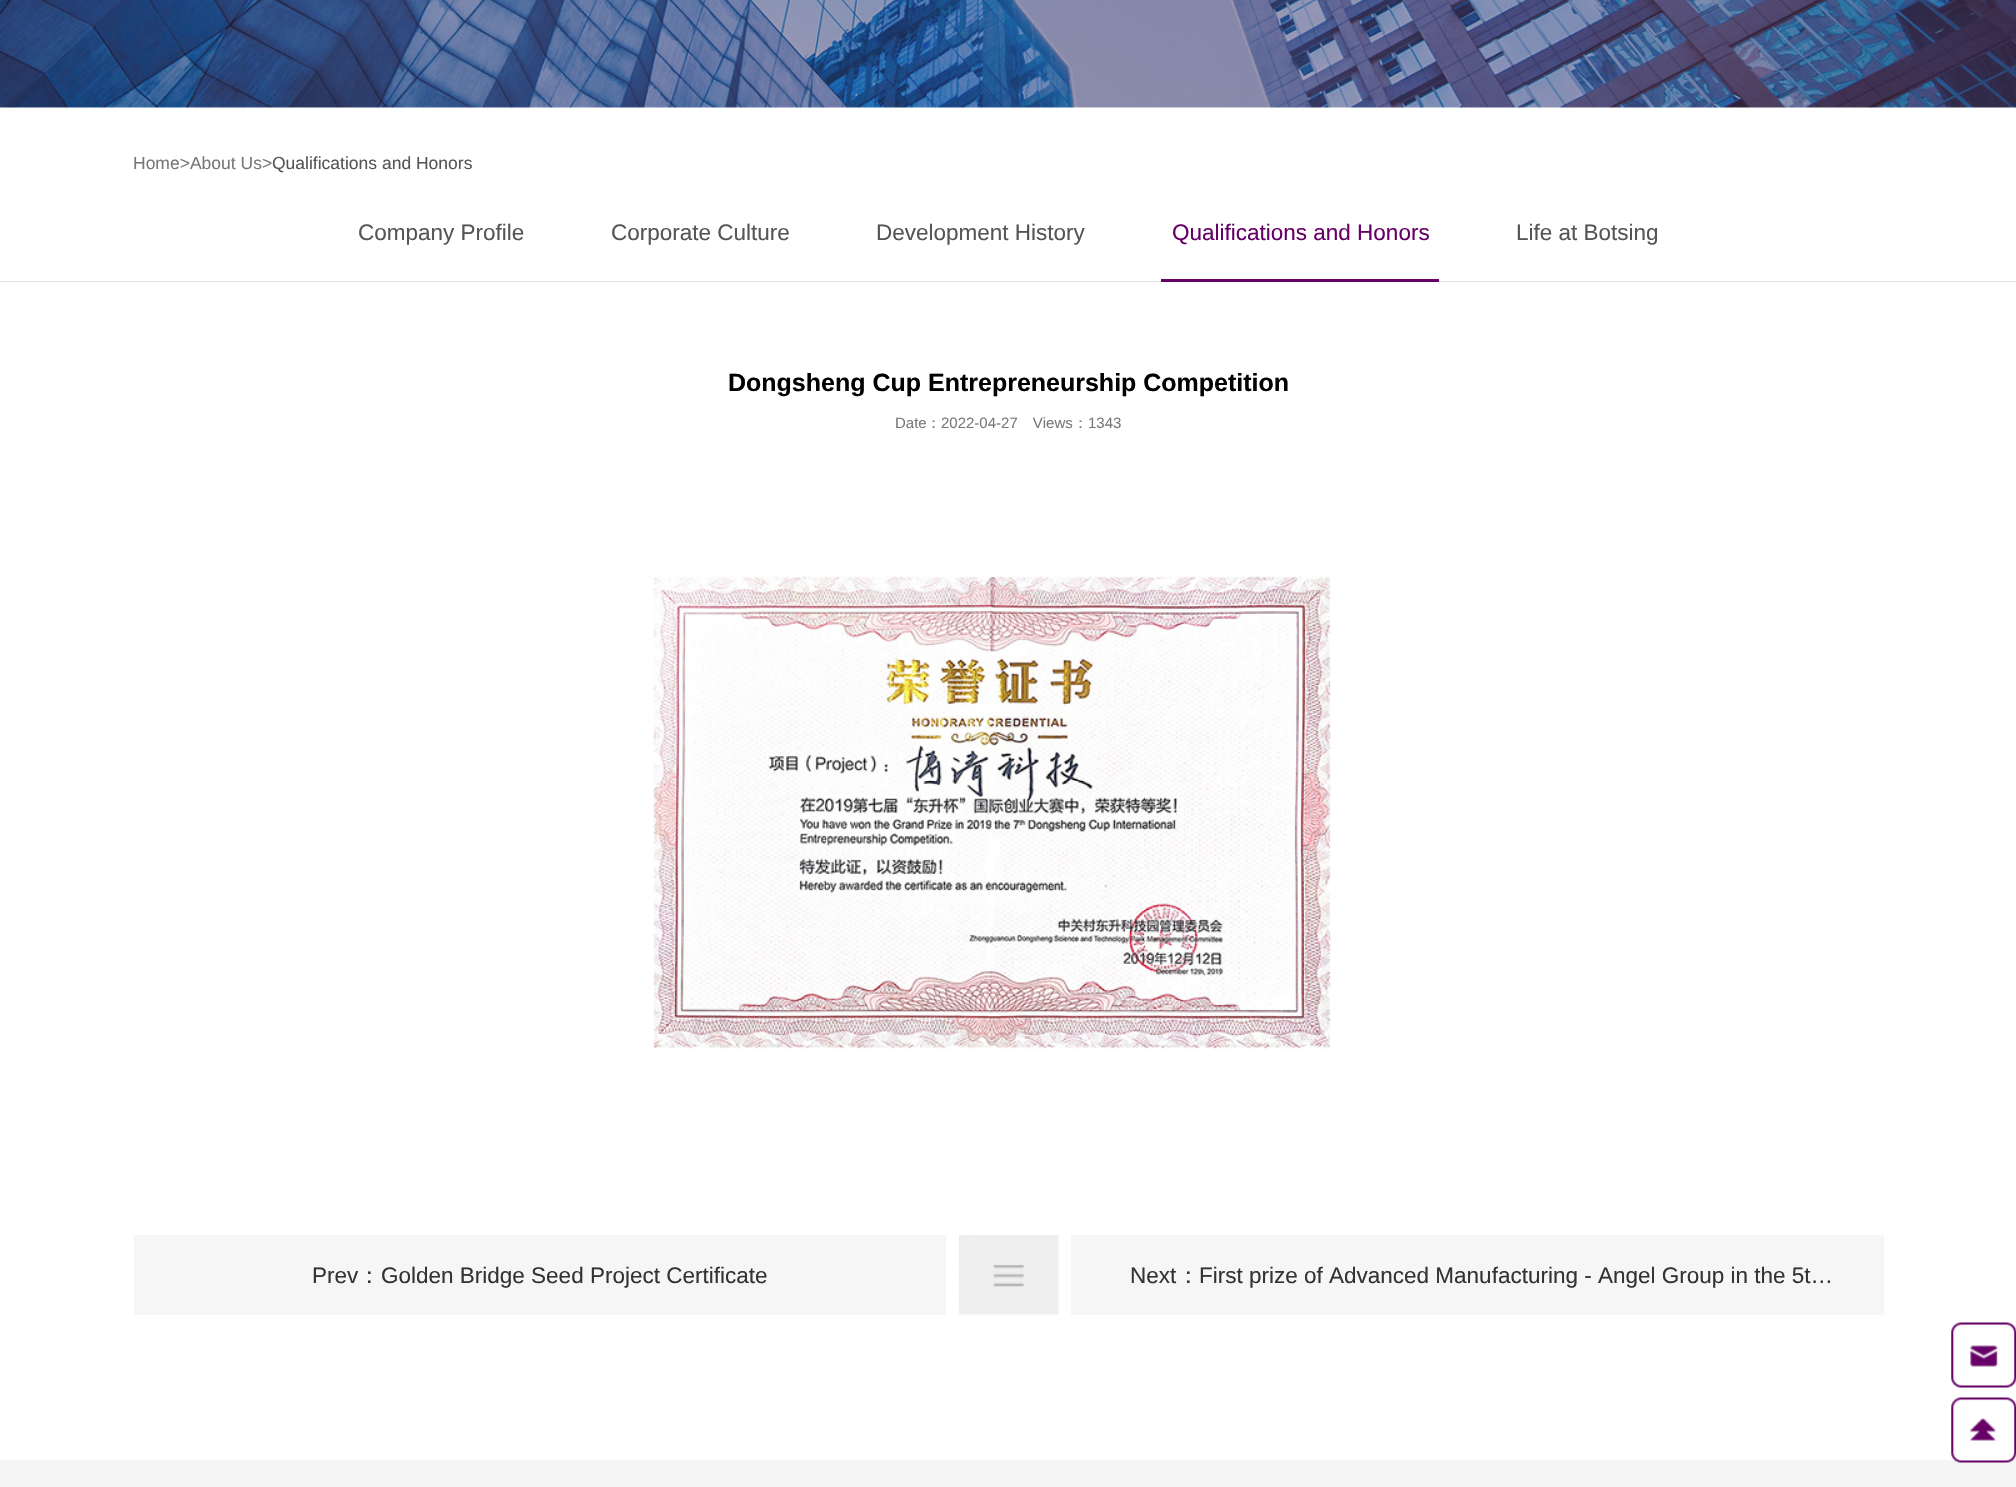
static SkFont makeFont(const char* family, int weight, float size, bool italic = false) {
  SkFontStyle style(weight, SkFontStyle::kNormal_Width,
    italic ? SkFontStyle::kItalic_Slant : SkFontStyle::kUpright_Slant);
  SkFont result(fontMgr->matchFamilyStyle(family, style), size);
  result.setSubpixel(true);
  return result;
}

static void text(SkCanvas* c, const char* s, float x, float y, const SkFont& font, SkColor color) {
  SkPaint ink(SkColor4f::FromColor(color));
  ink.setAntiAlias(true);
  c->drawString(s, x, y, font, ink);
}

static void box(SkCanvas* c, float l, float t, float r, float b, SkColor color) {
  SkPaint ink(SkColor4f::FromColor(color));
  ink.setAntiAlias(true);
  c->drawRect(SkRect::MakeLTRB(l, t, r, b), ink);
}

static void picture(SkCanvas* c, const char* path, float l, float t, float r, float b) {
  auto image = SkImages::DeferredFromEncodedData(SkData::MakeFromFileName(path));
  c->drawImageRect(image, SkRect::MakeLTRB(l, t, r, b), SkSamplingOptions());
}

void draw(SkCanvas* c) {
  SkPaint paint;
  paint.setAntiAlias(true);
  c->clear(0xffffffff);
  picture(c, "img_01.png", 0, 0, 2016, 108);
  SkFont face1 = makeFont("Liberation Sans", 400, 17.5f);
  text(c, "Home>About Us>", 133, 169, face1, 0xff787878);
  text(c, "Qualifications and Honors", 272, 169, face1, 0xff555555);
  box(c, 0, 281, 2016, 282, 0xffe1e1e1);
  SkFont face2 = makeFont("Liberation Sans", 400, 22.5f);
  text(c, "Company Profile", 358, 240, face2, 0xff555555);
  text(c, "Corporate Culture", 611, 240, face2, 0xff555555);
  text(c, "Development History", 876, 240, face2, 0xff555555);
  box(c, 1161, 279, 1439, 282, 0xff660066);
  text(c, "Qualifications and Honors", 1172, 240, face2, 0xff660066);
  text(c, "Life at Botsing", 1516, 240, face2, 0xff555555);
  SkFont face3 = makeFont("Liberation Sans", 700, 25);
  text(c, "Dongsheng Cup Entrepreneurship Competition", 728, 391, face3, 0xff000000);
  SkFont face4 = makeFont("Liberation Sans", 400, 15);
  text(c, "Date", 895, 428, face4, 0xff787878);
  SkFont face5 = makeFont("WenQuanYi Zen Hei", 500, 15);
  text(c, "：", 926, 428, face5, 0xff787878);
  text(c, "2022-04-27 Views", 941, 428, face4, 0xff787878);
  text(c, "：", 1073, 428, face5, 0xff787878);
  text(c, "1343", 1088, 428, face4, 0xff787878);
  picture(c, "img_02.png", 653, 574, 1331, 1051);
  box(c, 134, 1235, 946, 1315, 0xfff6f6f6);
  text(c, "Prev", 312, 1283, face2, 0xff333333);
  SkFont face6 = makeFont("WenQuanYi Zen Hei", 500, 22.5f);
  text(c, "：", 358, 1283, face6, 0xff333333);
  text(c, "Golden Bridge Seed Project Certificate", 381, 1283, face2, 0xff333333);
  box(c, 959, 1235, 1059, 1315, 0xfff6f6f6);
  picture(c, "img_03.png", 959, 1235, 1058, 1314);
  box(c, 1071, 1235, 1884, 1315, 0xfff6f6f6);
  text(c, "Next", 1130, 1283, face2, 0xff333333);
  text(c, "：", 1177, 1283, face6, 0xff333333);
  text(c, "First prize of Advanced Manufacturing - Angel Group in the 5t…", 1199, 1283, face2, 0xff333333);
  picture(c, "img_04.png", 1951, 1322, 2016, 1388);
  box(c, 0, 1460, 2016, 1487, 0xfff5f5f5);
  picture(c, "img_05.png", 1951, 1397, 2016, 1463);
}
